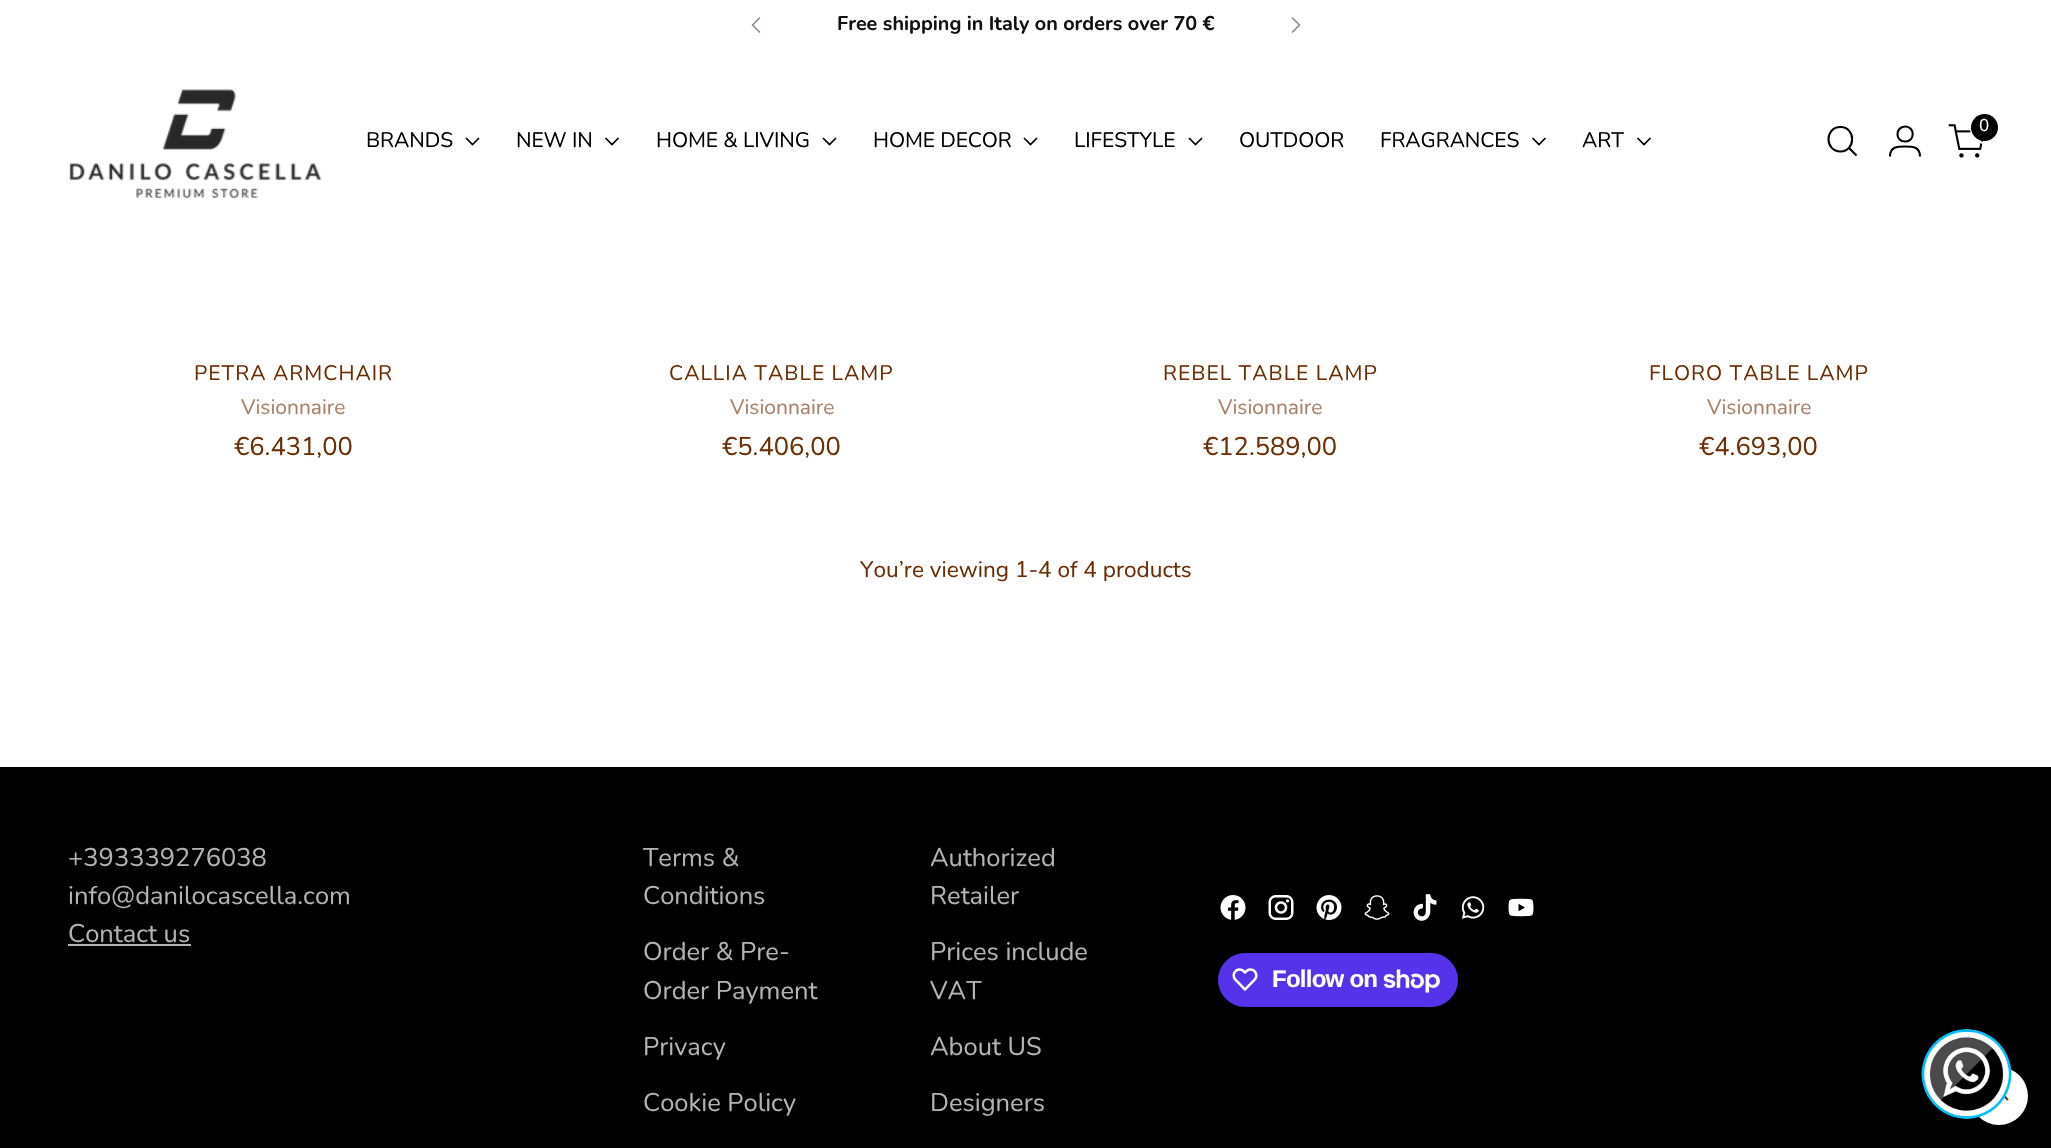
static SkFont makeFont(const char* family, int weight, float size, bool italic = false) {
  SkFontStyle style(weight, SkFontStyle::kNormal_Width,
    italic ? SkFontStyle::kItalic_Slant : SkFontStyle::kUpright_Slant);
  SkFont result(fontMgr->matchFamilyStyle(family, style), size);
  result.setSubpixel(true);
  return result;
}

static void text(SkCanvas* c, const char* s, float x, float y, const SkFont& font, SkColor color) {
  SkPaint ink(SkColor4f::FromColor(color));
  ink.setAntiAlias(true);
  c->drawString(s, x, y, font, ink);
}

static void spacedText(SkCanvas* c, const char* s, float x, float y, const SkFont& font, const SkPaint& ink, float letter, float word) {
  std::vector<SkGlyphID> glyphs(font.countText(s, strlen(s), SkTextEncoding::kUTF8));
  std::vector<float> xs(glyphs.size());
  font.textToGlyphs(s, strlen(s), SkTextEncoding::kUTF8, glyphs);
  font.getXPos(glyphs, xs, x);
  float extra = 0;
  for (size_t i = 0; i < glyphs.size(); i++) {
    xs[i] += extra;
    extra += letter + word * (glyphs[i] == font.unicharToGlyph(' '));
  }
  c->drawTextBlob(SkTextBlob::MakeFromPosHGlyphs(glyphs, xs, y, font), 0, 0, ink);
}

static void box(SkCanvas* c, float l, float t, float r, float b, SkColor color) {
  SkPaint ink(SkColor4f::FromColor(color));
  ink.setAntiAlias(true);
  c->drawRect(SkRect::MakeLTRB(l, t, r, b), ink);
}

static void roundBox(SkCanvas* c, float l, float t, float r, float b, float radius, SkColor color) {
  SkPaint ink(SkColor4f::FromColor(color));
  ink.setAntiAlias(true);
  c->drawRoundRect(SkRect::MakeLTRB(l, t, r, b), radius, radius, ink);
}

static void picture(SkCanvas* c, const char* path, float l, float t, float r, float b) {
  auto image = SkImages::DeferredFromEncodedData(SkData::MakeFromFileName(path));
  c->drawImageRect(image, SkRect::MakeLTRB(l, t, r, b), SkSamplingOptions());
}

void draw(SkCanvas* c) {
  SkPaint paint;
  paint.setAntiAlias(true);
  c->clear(0xffffffff);
  SkFont face1 = makeFont("Nunito", 700, 19.8f);
  text(c, "Free shipping in Italy on orders over 70 €", 837, 30, face1, 0xff111111);
  paint.setStyle(SkPaint::kStroke_Style);
  paint.setStrokeWidth(1.5f);
  paint.setColor(0xff888888);
  c->drawPath(SkPathBuilder().moveTo(760, 17.5f).lineTo(752.5f, 25).lineTo(760, 32.5f).detach(), paint);
  c->drawPath(SkPathBuilder().moveTo(1292, 32.5f).lineTo(1299.5f, 25).lineTo(1292, 17.5f).detach(), paint);
  paint.setStrokeWidth(2.1f);
  paint.setStrokeCap(SkPaint::kRound_Cap);
  paint.setColor(0xff000000);
  c->drawPath(SkPathBuilder().moveTo(1840.5f, 151.5f).cubicTo(1856, 151.5f, 1856, 127, 1840.5f, 127).cubicTo(1824.5f, 127, 1824.5f, 151.5f, 1840.5f, 151.5f).close().detach(), paint);
  paint.setStrokeCap(SkPaint::kButt_Cap);
  c->drawPath(SkPathBuilder().moveTo(1849, 148).lineTo(1856.5f, 155.5f).detach(), paint);
  c->drawPath(SkPathBuilder().moveTo(1905, 141.5f).cubicTo(1915.5f, 142, 1915, 126, 1905, 126.5f).cubicTo(1895, 127, 1895, 141.5f, 1905, 141.5f).close().moveTo(1890, 156.5f).cubicTo(1890, 146.5f, 1897.5f, 146.5f, 1905, 146.5f).cubicTo(1912.5f, 146.5f, 1920, 146.5f, 1920, 156.5f).detach(), paint);
  picture(c, "img_01.png", 1948, 124, 1983, 158);
  paint.setStrokeWidth(2);
  paint.setColor(0xffffffff);
  c->drawCircle(1985.5f, 128.5f, 14.5f, paint);
  paint.setStyle(SkPaint::kFill_Style);
  paint.setColor(0xff000000);
  c->drawCircle(1984.5f, 127.5f, 13.5f, paint);
  SkFont face2 = makeFont("Nunito", 400, 17);
  text(c, "0", 1979, 131, face2, 0xffffffff);
  picture(c, "img_02.png", 69, 89, 322, 199);
  SkFont face3 = makeFont("Nunito", 400, 21);
  spacedText(c, "BRANDS", 366, 147, face3, paint, -0.1f, 0);
  paint.setStyle(SkPaint::kStroke_Style);
  paint.setStrokeWidth(1.7f);
  c->drawPath(SkPathBuilder().moveTo(466, 138).lineTo(472.5f, 144.5f).lineTo(479, 138).detach(), paint);
  paint.setStyle(SkPaint::kFill_Style);
  spacedText(c, "NEW IN", 516, 147, face3, paint, -0.1f, 0);
  paint.setStyle(SkPaint::kStroke_Style);
  c->drawPath(SkPathBuilder().moveTo(605.5f, 138).lineTo(612, 144.5f).lineTo(618.5f, 138).detach(), paint);
  paint.setStyle(SkPaint::kFill_Style);
  spacedText(c, "HOME & LIVING", 656, 147, face3, paint, -0.1f, 0);
  paint.setStyle(SkPaint::kStroke_Style);
  c->drawPath(SkPathBuilder().moveTo(823, 138).lineTo(829.5f, 144.5f).lineTo(836, 138).detach(), paint);
  paint.setStyle(SkPaint::kFill_Style);
  spacedText(c, "HOME DECOR", 873, 147, face3, paint, -0.1f, 0);
  paint.setStyle(SkPaint::kStroke_Style);
  c->drawPath(SkPathBuilder().moveTo(1024, 138).lineTo(1030.5f, 144.5f).lineTo(1037, 138).detach(), paint);
  paint.setStyle(SkPaint::kFill_Style);
  spacedText(c, "LIFESTYLE", 1074, 147, face3, paint, -0.1f, 0);
  paint.setStyle(SkPaint::kStroke_Style);
  c->drawPath(SkPathBuilder().moveTo(1189, 138).lineTo(1195.5f, 144.5f).lineTo(1202, 138).detach(), paint);
  paint.setStyle(SkPaint::kFill_Style);
  spacedText(c, "OUTDOOR", 1239, 147, face3, paint, -0.1f, 0);
  spacedText(c, "FRAGRANCES", 1380, 147, face3, paint, -0.1f, 0);
  paint.setStyle(SkPaint::kStroke_Style);
  c->drawPath(SkPathBuilder().moveTo(1532.5f, 138).lineTo(1539, 144.5f).lineTo(1545.5f, 138).detach(), paint);
  paint.setStyle(SkPaint::kFill_Style);
  spacedText(c, "ART", 1582, 147, face3, paint, -0.1f, 0);
  paint.setStyle(SkPaint::kStroke_Style);
  c->drawPath(SkPathBuilder().moveTo(1637.5f, 138).lineTo(1644, 144.5f).lineTo(1650.5f, 138).detach(), paint);
  paint.setStyle(SkPaint::kFill_Style);
  paint.setColor(0xff6c2e05);
  spacedText(c, "PETRA ARMCHAIR", 194, 380, face3, paint, 1, 0);
  text(c, "Visionnaire", 241, 414, face3, 0xffa78269);
  SkFont face4 = makeFont("Nunito", 400, 25.5f);
  text(c, "€6.431,00", 234, 455, face4, 0xff6c2e05);
  spacedText(c, "CALLIA TABLE LAMP", 669, 380, face3, paint, 1, 0);
  text(c, "Visionnaire", 730, 414, face3, 0xffa78269);
  text(c, "€5.406,00", 722, 455, face4, 0xff6c2e05);
  spacedText(c, "REBEL TABLE LAMP", 1163, 380, face3, paint, 1, 0);
  text(c, "Visionnaire", 1218, 414, face3, 0xffa78269);
  text(c, "€12.589,00", 1203, 455, face4, 0xff6c2e05);
  spacedText(c, "FLORO TABLE LAMP", 1649, 380, face3, paint, 1, 0);
  text(c, "Visionnaire", 1707, 414, face3, 0xffa78269);
  text(c, "€4.693,00", 1699, 455, face4, 0xff6c2e05);
  SkFont face5 = makeFont("Nunito", 400, 22.6f);
  text(c, "You’re viewing 1-4 of 4 products", 860, 577, face5, 0xff6c2e05);
  box(c, 0, 767, 2051, 1148, 0xff000000);
  text(c, "+393339276038", 68, 866, face4, 0xffb3b3b3);
  text(c, "info@danilocascella.com", 68, 904, face4, 0xffb3b3b3);
  text(c, "Contact us", 68, 942, face4, 0xffb3b3b3);
  box(c, 68, 944, 191, 946, 0xffb3b3b3);
  text(c, "Terms &", 643, 866, face4, 0xffb3b3b3);
  text(c, "Conditions", 643, 904, face4, 0xffb3b3b3);
  text(c, "Order & Pre-", 643, 960, face4, 0xffb3b3b3);
  text(c, "Order Payment", 643, 999, face4, 0xffb3b3b3);
  text(c, "Privacy", 643, 1055, face4, 0xffb3b3b3);
  text(c, "Cookie Policy", 643, 1111, face4, 0xffb3b3b3);
  text(c, "Authorized", 930, 866, face4, 0xffb3b3b3);
  text(c, "Retailer", 930, 904, face4, 0xffb3b3b3);
  text(c, "Prices include", 930, 960, face4, 0xffb3b3b3);
  text(c, "VAT", 930, 999, face4, 0xffb3b3b3);
  text(c, "About US", 930, 1055, face4, 0xffb3b3b3);
  text(c, "Designers", 930, 1111, face4, 0xffb3b3b3);
  picture(c, "img_03.png", 1220, 895, 1246, 920);
  picture(c, "img_04.png", 1268, 895, 1294, 920);
  picture(c, "img_05.png", 1316, 895, 1342, 920);
  picture(c, "img_06.png", 1364, 895, 1390, 920);
  picture(c, "img_07.png", 1413, 894, 1437, 921);
  picture(c, "img_08.png", 1461, 896, 1485, 919);
  picture(c, "img_09.png", 1508, 898, 1534, 917);
  roundBox(c, 1218, 953, 1458, 1007, 27, 0xff5433eb);
  picture(c, "img_10.png", 1232, 968, 1258, 991);
  SkFont face6 = makeFont("Liberation Sans", 700, 24);
  paint.setColor(0xffffffff);
  spacedText(c, "Follow on", 1272, 987, face6, paint, -0.75f, 0);
  picture(c, "img_11.png", 1383, 969, 1440, 993);
  c->drawCircle(1999, 1096, 29, paint);
  paint.setStyle(SkPaint::kStroke_Style);
  paint.setStrokeWidth(1.9f);
  paint.setColor(0xff6c2e05);
  c->drawPath(SkPathBuilder().moveTo(2008, 1100).lineTo(1999, 1090.5f).lineTo(1989.5f, 1100).detach(), paint);
  picture(c, "img_12.png", 1921, 1029, 2012, 1119);
}
